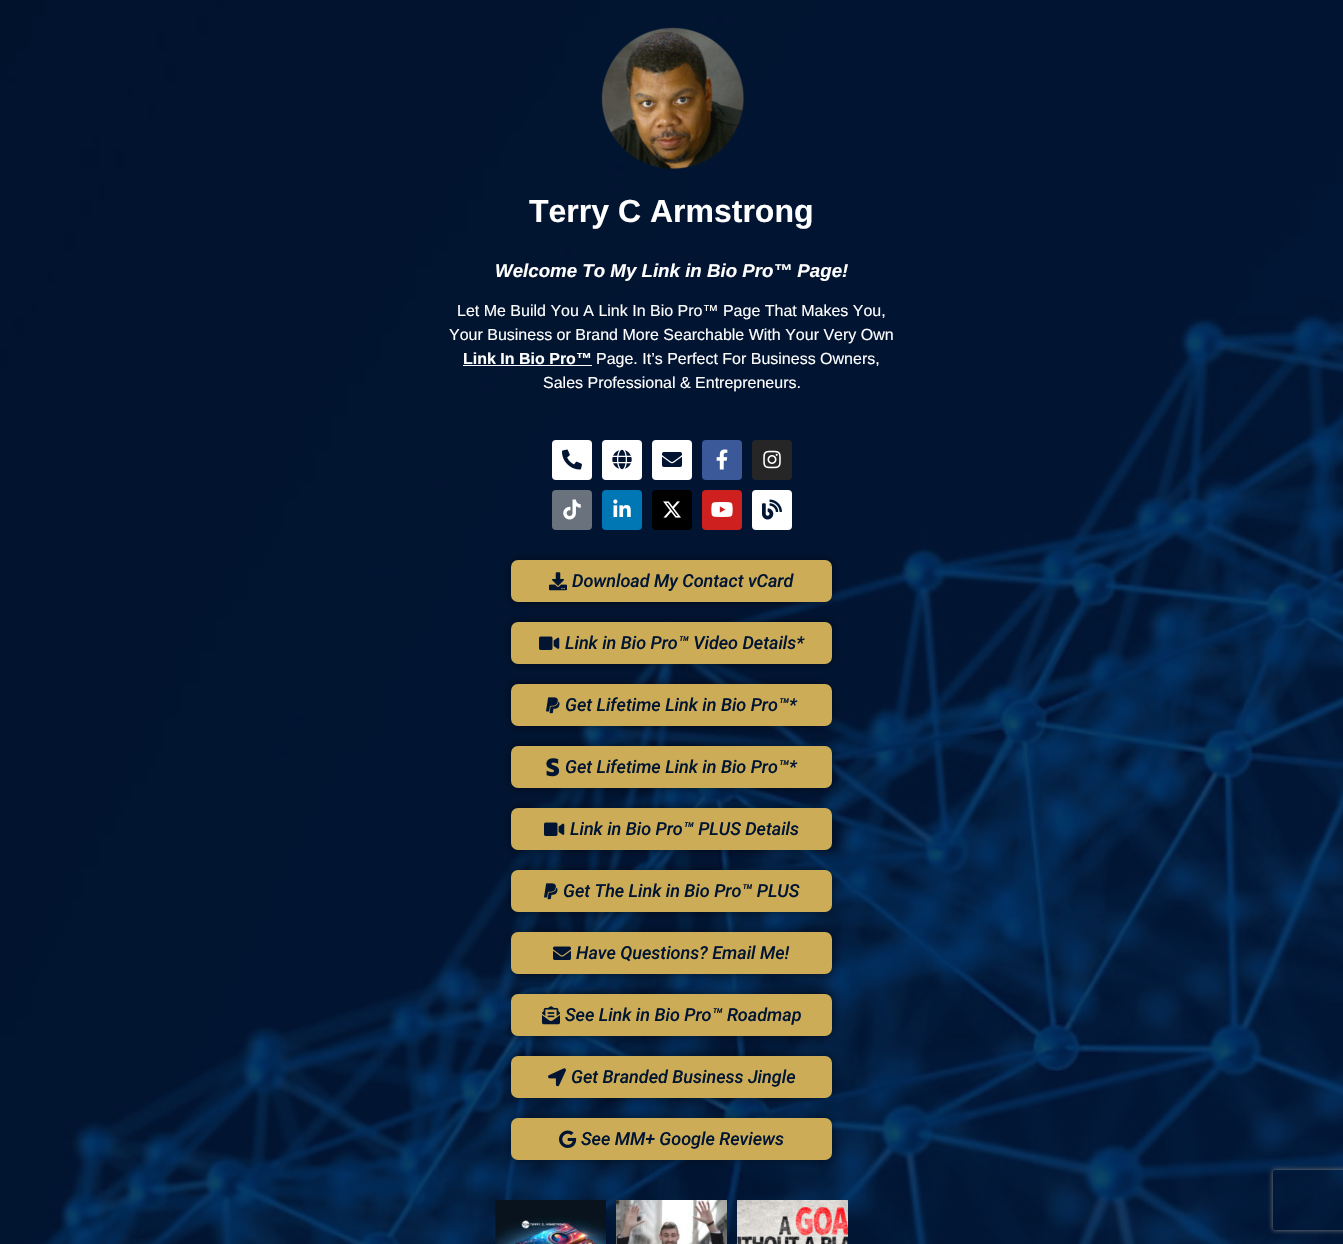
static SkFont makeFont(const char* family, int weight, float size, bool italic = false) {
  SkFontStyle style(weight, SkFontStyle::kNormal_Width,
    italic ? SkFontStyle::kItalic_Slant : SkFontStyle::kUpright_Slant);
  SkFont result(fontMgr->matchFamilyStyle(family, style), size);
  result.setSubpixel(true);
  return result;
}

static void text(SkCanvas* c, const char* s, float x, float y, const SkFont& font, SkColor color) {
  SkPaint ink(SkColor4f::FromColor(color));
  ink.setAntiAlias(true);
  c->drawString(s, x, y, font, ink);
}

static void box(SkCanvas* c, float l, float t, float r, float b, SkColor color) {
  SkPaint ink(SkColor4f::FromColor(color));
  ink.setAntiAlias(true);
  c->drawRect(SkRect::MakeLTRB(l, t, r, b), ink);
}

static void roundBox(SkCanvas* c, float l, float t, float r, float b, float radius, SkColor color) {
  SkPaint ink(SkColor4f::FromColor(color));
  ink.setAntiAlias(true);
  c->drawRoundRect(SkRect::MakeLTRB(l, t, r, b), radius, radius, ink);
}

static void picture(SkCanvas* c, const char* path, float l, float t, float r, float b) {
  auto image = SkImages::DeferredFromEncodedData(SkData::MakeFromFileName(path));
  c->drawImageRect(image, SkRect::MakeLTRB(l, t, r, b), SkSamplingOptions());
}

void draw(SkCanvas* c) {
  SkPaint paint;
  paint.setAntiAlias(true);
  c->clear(0xffffffff);
  picture(c, "img_01.png", 0, 0, 1343, 1244);
  picture(c, "img_02.png", 601, 27, 744, 169);
  SkFont face1 = makeFont("Liberation Sans", 700, 32);
  text(c, "Terry C Armstrong", 529, 222, face1, 0xffffffff);
  SkFont face2 = makeFont("Liberation Sans", 700, 18.7f, true);
  text(c, "Welcome To My Link in Bio Pro™ Page!", 495, 277, face2, 0xffffffff);
  SkFont face3 = makeFont("Liberation Sans", 400, 16);
  text(c, "Let Me Build You A Link In Bio Pro™ Page That Makes You,", 457, 316, face3, 0xffffffff);
  text(c, "Your Business or Brand More Searchable With Your Very Own", 449, 340, face3, 0xffffffff);
  SkFont face4 = makeFont("Liberation Sans", 700, 16);
  text(c, "Link In Bio Pro™", 463, 364, face4, 0xffffffff);
  box(c, 463, 365, 592, 366, 0xffffffff);
  text(c, "Page. It’s Perfect For Business Owners,", 596, 364, face3, 0xffffffff);
  text(c, "Sales Professional & Entrepreneurs.", 543, 388, face3, 0xffffffff);
  roundBox(c, 552, 440, 592, 480, 4, 0xffffffff);
  picture(c, "img_03.png", 562, 449, 582, 470);
  roundBox(c, 602, 440, 642, 480, 4, 0xffffffff);
  picture(c, "img_04.png", 612, 449, 632, 470);
  roundBox(c, 652, 440, 692, 480, 4, 0xffffffff);
  picture(c, "img_05.png", 662, 452, 682, 467);
  roundBox(c, 702, 440, 742, 480, 4, 0xff3b5998);
  picture(c, "img_06.png", 716, 449, 728, 470);
  roundBox(c, 752, 440, 792, 480, 4, 0xff262626);
  picture(c, "img_07.png", 763, 450, 781, 469);
  roundBox(c, 552, 490, 592, 530, 4, 0xff69727d);
  picture(c, "img_08.png", 563, 499, 581, 520);
  roundBox(c, 602, 490, 642, 530, 4, 0xff0077b5);
  picture(c, "img_09.png", 613, 499, 631, 517);
  roundBox(c, 652, 490, 692, 530, 4, 0xff000000);
  picture(c, "img_10.png", 663, 501, 681, 518);
  roundBox(c, 702, 490, 742, 530, 4, 0xffcd201f);
  picture(c, "img_11.png", 711, 502, 733, 517);
  roundBox(c, 752, 490, 792, 530, 4, 0xffffffff);
  picture(c, "img_12.png", 762, 499, 782, 520);
  paint.setColor(0x80000000);
  paint.setMaskFilter(SkMaskFilter::MakeBlur(kNormal_SkBlurStyle, 5));
  c->drawRoundRect(SkRect::MakeLTRB(511, 560, 832, 602), 7, 7, paint);
  paint.setMaskFilter(nullptr);
  roundBox(c, 511, 560, 832, 602, 7, 0xffccac57);
  picture(c, "img_13.png", 549, 572, 567, 591);
  SkFont face5 = makeFont("Roboto", 500, 18, true);
  text(c, "Download My Contact vCard", 572, 587, face5, 0xff011532);
  paint.setMaskFilter(SkMaskFilter::MakeBlur(kNormal_SkBlurStyle, 5));
  c->drawRoundRect(SkRect::MakeLTRB(511, 622, 832, 664), 7, 7, paint);
  paint.setMaskFilter(nullptr);
  roundBox(c, 511, 622, 832, 664, 7, 0xffccac57);
  picture(c, "img_14.png", 539, 636, 560, 650);
  text(c, "Link in Bio Pro™ Video Details*", 565, 649, face5, 0xff011532);
  paint.setMaskFilter(SkMaskFilter::MakeBlur(kNormal_SkBlurStyle, 5));
  c->drawRoundRect(SkRect::MakeLTRB(511, 684, 832, 726), 7, 7, paint);
  paint.setMaskFilter(nullptr);
  roundBox(c, 511, 684, 832, 726, 7, 0xffccac57);
  picture(c, "img_15.png", 546, 697, 560, 714);
  text(c, "Get Lifetime Link in Bio Pro™*", 565, 711, face5, 0xff011532);
  paint.setMaskFilter(SkMaskFilter::MakeBlur(kNormal_SkBlurStyle, 5));
  c->drawRoundRect(SkRect::MakeLTRB(511, 746, 832, 788), 7, 7, paint);
  paint.setMaskFilter(nullptr);
  roundBox(c, 511, 746, 832, 788, 7, 0xffccac57);
  picture(c, "img_16.png", 546, 758, 560, 777);
  text(c, "Get Lifetime Link in Bio Pro™*", 565, 773, face5, 0xff011532);
  paint.setMaskFilter(SkMaskFilter::MakeBlur(kNormal_SkBlurStyle, 5));
  c->drawRoundRect(SkRect::MakeLTRB(511, 808, 832, 850), 7, 7, paint);
  paint.setMaskFilter(nullptr);
  roundBox(c, 511, 808, 832, 850, 7, 0xffccac57);
  picture(c, "img_14.png", 544, 822, 565, 836);
  text(c, "Link in Bio Pro™ PLUS Details", 570, 835, face5, 0xff011532);
  paint.setMaskFilter(SkMaskFilter::MakeBlur(kNormal_SkBlurStyle, 5));
  c->drawRoundRect(SkRect::MakeLTRB(511, 870, 832, 912), 7, 7, paint);
  paint.setMaskFilter(nullptr);
  roundBox(c, 511, 870, 832, 912, 7, 0xffccac57);
  picture(c, "img_15.png", 544, 883, 558, 900);
  text(c, "Get The Link in Bio Pro™ PLUS", 563, 897, face5, 0xff011532);
  paint.setMaskFilter(SkMaskFilter::MakeBlur(kNormal_SkBlurStyle, 5));
  c->drawRoundRect(SkRect::MakeLTRB(511, 932, 832, 974), 7, 7, paint);
  paint.setMaskFilter(nullptr);
  roundBox(c, 511, 932, 832, 974, 7, 0xffccac57);
  picture(c, "img_17.png", 553, 946, 571, 960);
  text(c, "Have Questions? Email Me!", 576, 959, face5, 0xff011532);
  paint.setMaskFilter(SkMaskFilter::MakeBlur(kNormal_SkBlurStyle, 5));
  c->drawRoundRect(SkRect::MakeLTRB(511, 994, 832, 1036), 7, 7, paint);
  paint.setMaskFilter(nullptr);
  roundBox(c, 511, 994, 832, 1036, 7, 0xffccac57);
  picture(c, "img_18.png", 542, 1006, 560, 1025);
  text(c, "See Link in Bio Pro™ Roadmap", 565, 1021, face5, 0xff011532);
  paint.setMaskFilter(SkMaskFilter::MakeBlur(kNormal_SkBlurStyle, 5));
  c->drawRoundRect(SkRect::MakeLTRB(511, 1056, 832, 1098), 7, 7, paint);
  paint.setMaskFilter(nullptr);
  roundBox(c, 511, 1056, 832, 1098, 7, 0xffccac57);
  picture(c, "img_19.png", 548, 1068, 566, 1087);
  text(c, "Get Branded Business Jingle", 571, 1083, face5, 0xff011532);
  paint.setMaskFilter(SkMaskFilter::MakeBlur(kNormal_SkBlurStyle, 5));
  c->drawRoundRect(SkRect::MakeLTRB(511, 1118, 832, 1160), 7, 7, paint);
  paint.setMaskFilter(nullptr);
  roundBox(c, 511, 1118, 832, 1160, 7, 0xffccac57);
  picture(c, "img_20.png", 559, 1130, 577, 1148);
  text(c, "See MM+ Google Reviews", 581, 1145, face5, 0xff011532);
  picture(c, "img_21.png", 495, 1200, 606, 1244);
  picture(c, "img_22.png", 616, 1200, 727, 1244);
  picture(c, "img_23.png", 737, 1200, 848, 1244);
  c->save();
  c->clipPath(SkPathBuilder(SkPathFillType::kEvenOdd).moveTo(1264, 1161).lineTo(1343, 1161).lineTo(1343, 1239).lineTo(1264, 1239).close().moveTo(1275, 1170).lineTo(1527, 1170).cubicTo(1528, 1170, 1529, 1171, 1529, 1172).lineTo(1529, 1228).cubicTo(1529, 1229, 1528, 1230, 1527, 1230).lineTo(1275, 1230).cubicTo(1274, 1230, 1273, 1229, 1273, 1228).lineTo(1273, 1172).cubicTo(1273, 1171, 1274, 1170, 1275, 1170).close().detach(), true);
  paint.setColor(0xff808080);
  paint.setMaskFilter(SkMaskFilter::MakeBlur(kNormal_SkBlurStyle, 2.5f));
  c->drawRoundRect(SkRect::MakeLTRB(1273, 1170, 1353, 1230), 2, 2, paint);
  paint.setMaskFilter(nullptr);
  c->restore();
}
